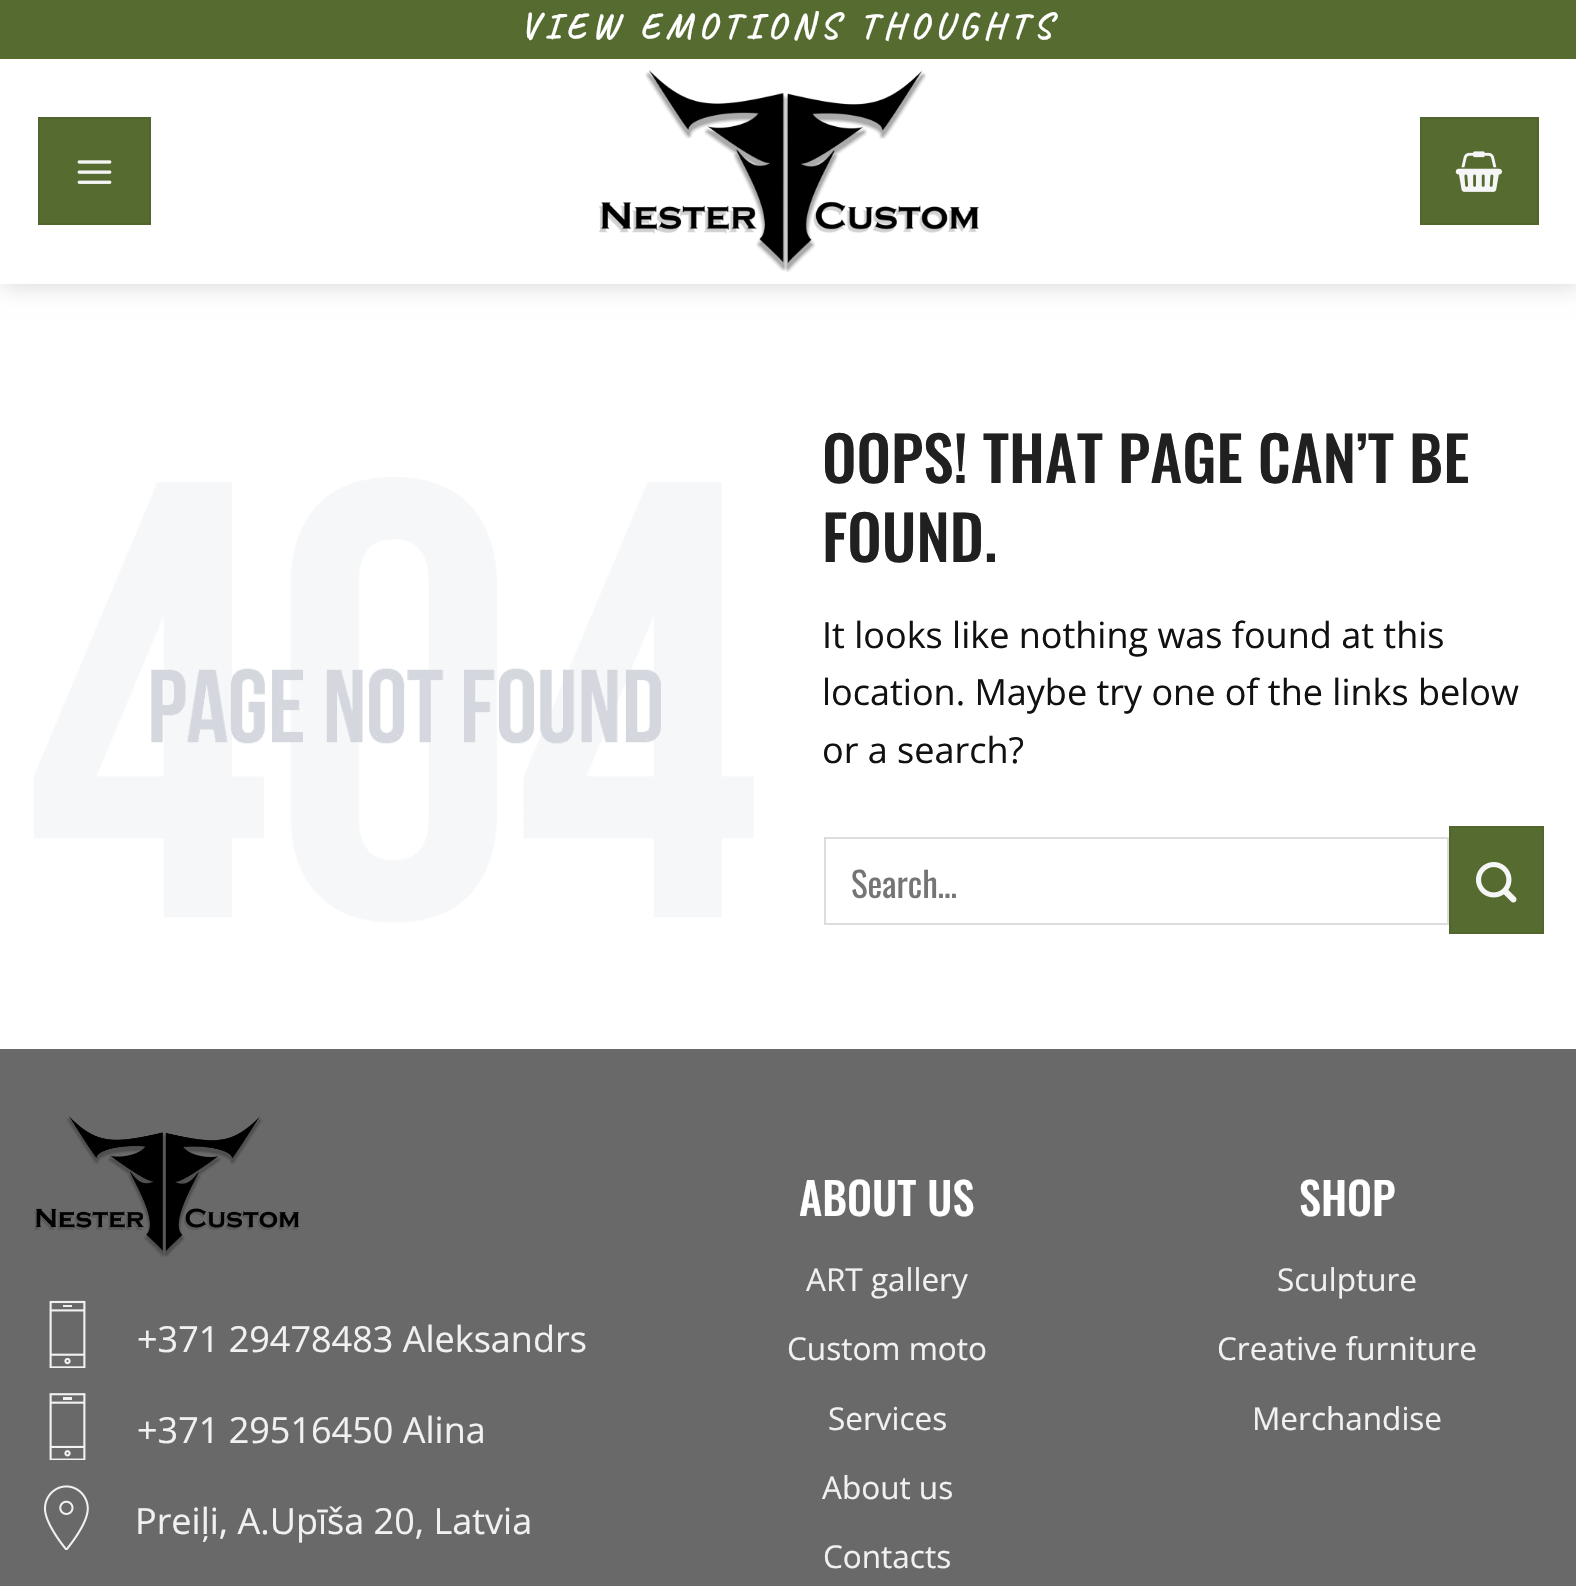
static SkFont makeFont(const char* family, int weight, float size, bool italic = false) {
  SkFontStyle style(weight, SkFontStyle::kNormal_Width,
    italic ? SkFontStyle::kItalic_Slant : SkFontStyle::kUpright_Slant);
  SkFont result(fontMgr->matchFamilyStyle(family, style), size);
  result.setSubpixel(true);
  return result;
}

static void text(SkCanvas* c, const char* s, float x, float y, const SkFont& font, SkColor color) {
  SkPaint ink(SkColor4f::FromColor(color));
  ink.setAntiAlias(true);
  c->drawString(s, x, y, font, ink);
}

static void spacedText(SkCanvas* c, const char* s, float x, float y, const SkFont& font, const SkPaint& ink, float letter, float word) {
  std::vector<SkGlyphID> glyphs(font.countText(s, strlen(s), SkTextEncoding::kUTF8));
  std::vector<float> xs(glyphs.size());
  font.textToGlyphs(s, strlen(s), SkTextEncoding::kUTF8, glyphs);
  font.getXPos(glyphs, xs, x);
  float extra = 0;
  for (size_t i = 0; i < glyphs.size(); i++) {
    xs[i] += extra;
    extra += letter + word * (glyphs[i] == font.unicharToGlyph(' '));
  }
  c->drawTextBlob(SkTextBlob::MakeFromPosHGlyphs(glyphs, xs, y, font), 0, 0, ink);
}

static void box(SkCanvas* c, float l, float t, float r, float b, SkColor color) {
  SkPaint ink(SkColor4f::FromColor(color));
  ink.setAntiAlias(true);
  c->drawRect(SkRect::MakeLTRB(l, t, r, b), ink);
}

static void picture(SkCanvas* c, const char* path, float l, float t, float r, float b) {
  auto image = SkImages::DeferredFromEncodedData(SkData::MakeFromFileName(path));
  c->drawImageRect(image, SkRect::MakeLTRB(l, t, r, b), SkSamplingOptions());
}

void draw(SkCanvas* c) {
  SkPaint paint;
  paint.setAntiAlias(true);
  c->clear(0xffffffff);
  paint.setColor(0x26000000);
  paint.setMaskFilter(SkMaskFilter::MakeBlur(kNormal_SkBlurStyle, 11));
  c->drawRect(SkRect::MakeLTRB(2, 2, 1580, 286), paint);
  paint.setMaskFilter(nullptr);
  box(c, 0, 0, 1576, 59, 0xff556b2f);
  SkFont face1 = makeFont("Caveat", 700, 36);
  paint.setColor(0xffffffff);
  spacedText(c, "VIEW EMOTIONS THOUGHTS", 520, 38, face1, paint, 6.75f, 0);
  box(c, 0, 59, 1576, 284, 0xffffffff);
  paint.setColor(0xff556b2f);
  c->drawRect(SkRect::MakeLTRB(39, 118, 150, 224), paint);
  paint.setStyle(SkPaint::kStroke_Style);
  paint.setStrokeWidth(2);
  paint.setColor(0xff51662d);
  c->drawRect(SkRect::MakeLTRB(39, 118, 150, 224), paint);
  picture(c, "img_01.png", 77, 160, 112, 184);
  picture(c, "img_02.png", 598, 70, 979, 272);
  paint.setStyle(SkPaint::kFill_Style);
  paint.setColor(0xff556b2f);
  c->drawRect(SkRect::MakeLTRB(1421, 118, 1538, 224), paint);
  paint.setStyle(SkPaint::kStroke_Style);
  paint.setColor(0xff51662d);
  c->drawRect(SkRect::MakeLTRB(1421, 118, 1538, 224), paint);
  picture(c, "img_03.png", 1455, 151, 1502, 192);
  picture(c, "img_04.png", 34, 477, 754, 923);
  SkFont face2 = makeFont("Oswald", 500, 61.25f);
  text(c, "OOPS! THAT PAGE CAN’T BE", 822, 483, face2, 0xff202020);
  text(c, "FOUND.", 822, 562, face2, 0xff202020);
  SkFont face3 = makeFont("Open Sans", 400, 36);
  text(c, "It looks like nothing was found at this", 822, 648, face3, 0xff111111);
  text(c, "location. Maybe try one of the links below", 822, 705, face3, 0xff111111);
  text(c, "or a search?", 822, 763, face3, 0xff111111);
  paint.setColor(0xffdddddd);
  c->drawRect(SkRect::MakeLTRB(825, 838, 1448, 924), paint);
  SkFont face4 = makeFont("Oswald", 400, 35);
  text(c, "Search…", 851, 898, face4, 0xff757575);
  paint.setStyle(SkPaint::kFill_Style);
  paint.setColor(0xff556b2f);
  c->drawRect(SkRect::MakeLTRB(1450, 827, 1543, 933), paint);
  paint.setStyle(SkPaint::kStroke_Style);
  paint.setColor(0xff51662d);
  c->drawRect(SkRect::MakeLTRB(1450, 827, 1543, 933), paint);
  picture(c, "img_05.png", 1476, 862, 1517, 903);
  box(c, 0, 1049, 1576, 1586, 0xff696969);
  picture(c, "img_06.png", 34, 1116, 299, 1257);
  picture(c, "img_07.png", 49, 1300, 86, 1368);
  text(c, "+371 29478483 Aleksandrs", 137, 1352, face3, 0xfff1f1f1);
  picture(c, "img_08.png", 49, 1393, 86, 1460);
  text(c, "+371 29516450 Alina", 137, 1443, face3, 0xfff1f1f1);
  picture(c, "img_09.png", 43, 1485, 89, 1550);
  text(c, "Preiļi, A.Upīša 20, Latvia", 135, 1534, face3, 0xfff1f1f1);
  SkFont face5 = makeFont("Oswald", 500, 44.5f);
  text(c, "ABOUT US", 799, 1216, face5, 0xffffffff);
  SkFont face6 = makeFont("Open Sans", 400, 31.5f);
  text(c, "ART gallery", 806, 1291, face6, 0xfff1f1f1);
  text(c, "Custom moto", 787, 1360, face6, 0xfff1f1f1);
  text(c, "Services", 828, 1430, face6, 0xfff1f1f1);
  text(c, "About us", 822, 1499, face6, 0xfff1f1f1);
  text(c, "Contacts", 823, 1568, face6, 0xfff1f1f1);
  text(c, "SHOP", 1299, 1216, face5, 0xffffffff);
  text(c, "Sculpture", 1277, 1291, face6, 0xfff1f1f1);
  text(c, "Creative furniture", 1217, 1360, face6, 0xfff1f1f1);
  text(c, "Merchandise", 1252, 1430, face6, 0xfff1f1f1);
}
